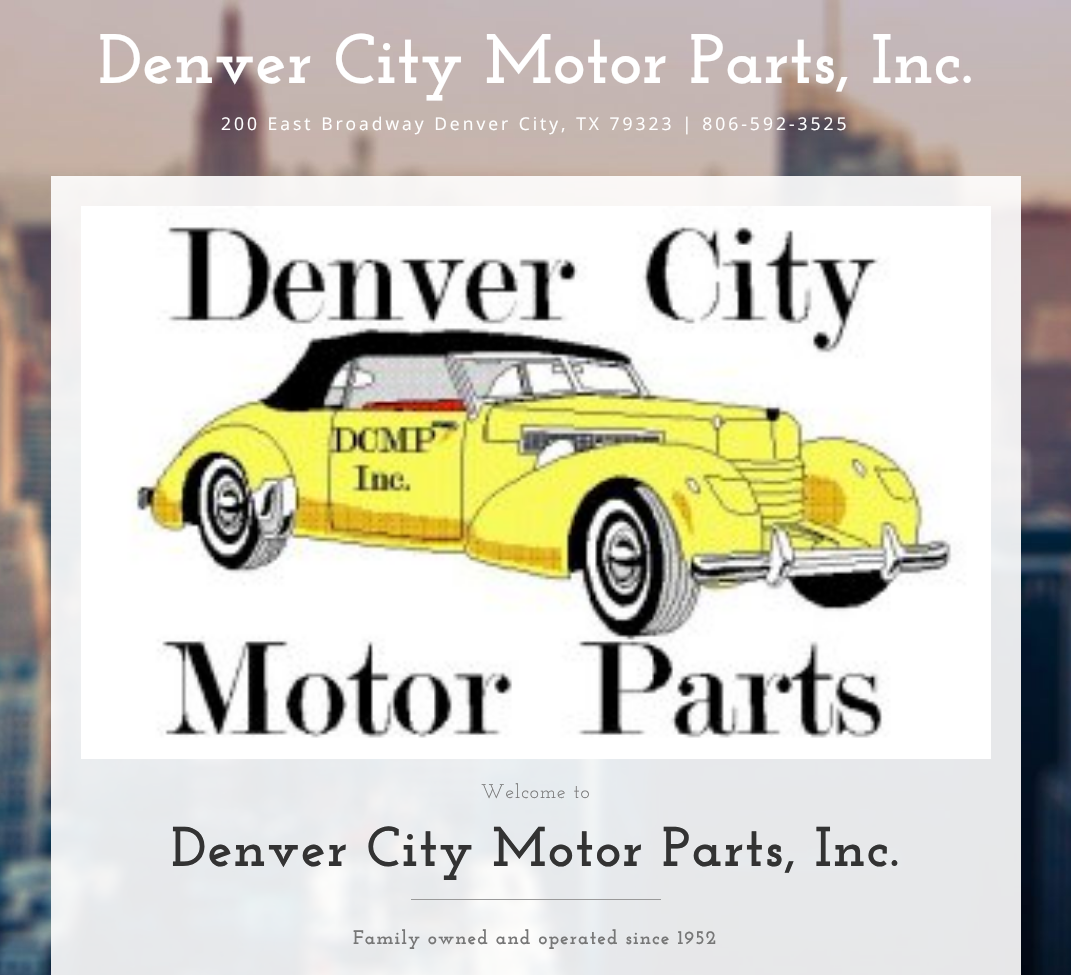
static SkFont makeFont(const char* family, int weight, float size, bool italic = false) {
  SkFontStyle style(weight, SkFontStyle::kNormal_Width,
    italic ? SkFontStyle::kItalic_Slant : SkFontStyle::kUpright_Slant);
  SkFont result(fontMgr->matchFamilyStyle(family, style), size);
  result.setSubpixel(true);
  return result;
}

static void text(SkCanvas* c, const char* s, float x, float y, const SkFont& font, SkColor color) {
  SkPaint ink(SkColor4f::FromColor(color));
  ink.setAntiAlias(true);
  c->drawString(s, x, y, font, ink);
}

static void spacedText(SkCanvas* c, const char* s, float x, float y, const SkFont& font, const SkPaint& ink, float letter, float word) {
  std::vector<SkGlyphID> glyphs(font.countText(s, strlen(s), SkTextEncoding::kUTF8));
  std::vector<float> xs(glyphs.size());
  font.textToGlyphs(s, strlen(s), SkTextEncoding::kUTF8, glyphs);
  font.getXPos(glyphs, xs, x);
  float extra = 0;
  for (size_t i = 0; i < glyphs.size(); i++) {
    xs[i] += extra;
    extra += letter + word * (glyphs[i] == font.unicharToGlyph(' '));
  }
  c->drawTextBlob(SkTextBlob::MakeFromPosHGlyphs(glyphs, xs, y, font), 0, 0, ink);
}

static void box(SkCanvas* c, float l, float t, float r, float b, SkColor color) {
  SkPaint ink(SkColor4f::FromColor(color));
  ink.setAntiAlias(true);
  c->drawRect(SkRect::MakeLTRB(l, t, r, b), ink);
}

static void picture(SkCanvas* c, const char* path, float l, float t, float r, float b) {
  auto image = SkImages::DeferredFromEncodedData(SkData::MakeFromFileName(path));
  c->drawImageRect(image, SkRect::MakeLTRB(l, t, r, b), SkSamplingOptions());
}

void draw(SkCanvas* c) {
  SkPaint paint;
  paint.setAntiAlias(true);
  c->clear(0xffffffff);
  picture(c, "img_01.png", 0, 0, 1071, 975);
  SkFont face1 = makeFont("Josefin Slab", 700, 70);
  text(c, "Denver City Motor Parts, Inc.", 98, 83, face1, 0xffffffff);
  SkFont face2 = makeFont("Open Sans", 400, 17.5f);
  paint.setColor(0xffffffff);
  spacedText(c, "200 East Broadway Denver City, TX 79323 | 806-592-3525", 221, 130, face2, paint, 3, 0);
  box(c, 51, 176, 1021, 975, 0xe6ffffff);
  picture(c, "img_02.png", 81, 206, 991, 759);
  SkFont face3 = makeFont("Josefin Slab", 400, 19.5f);
  paint.setColor(0xff777777);
  spacedText(c, "Welcome to", 481, 798, face3, paint, 1, 0);
  SkFont face4 = makeFont("Josefin Slab", 700, 56);
  paint.setColor(0xff333333);
  spacedText(c, "Denver City Motor Parts, Inc.", 171, 866, face4, paint, 1, 0);
  box(c, 411, 899, 661, 900, 0xff999999);
  SkFont face5 = makeFont("Josefin Slab", 700, 19.5f);
  paint.setColor(0xff777777);
  spacedText(c, "Family owned and operated since 1952", 353, 944, face5, paint, 1, 0);
}
